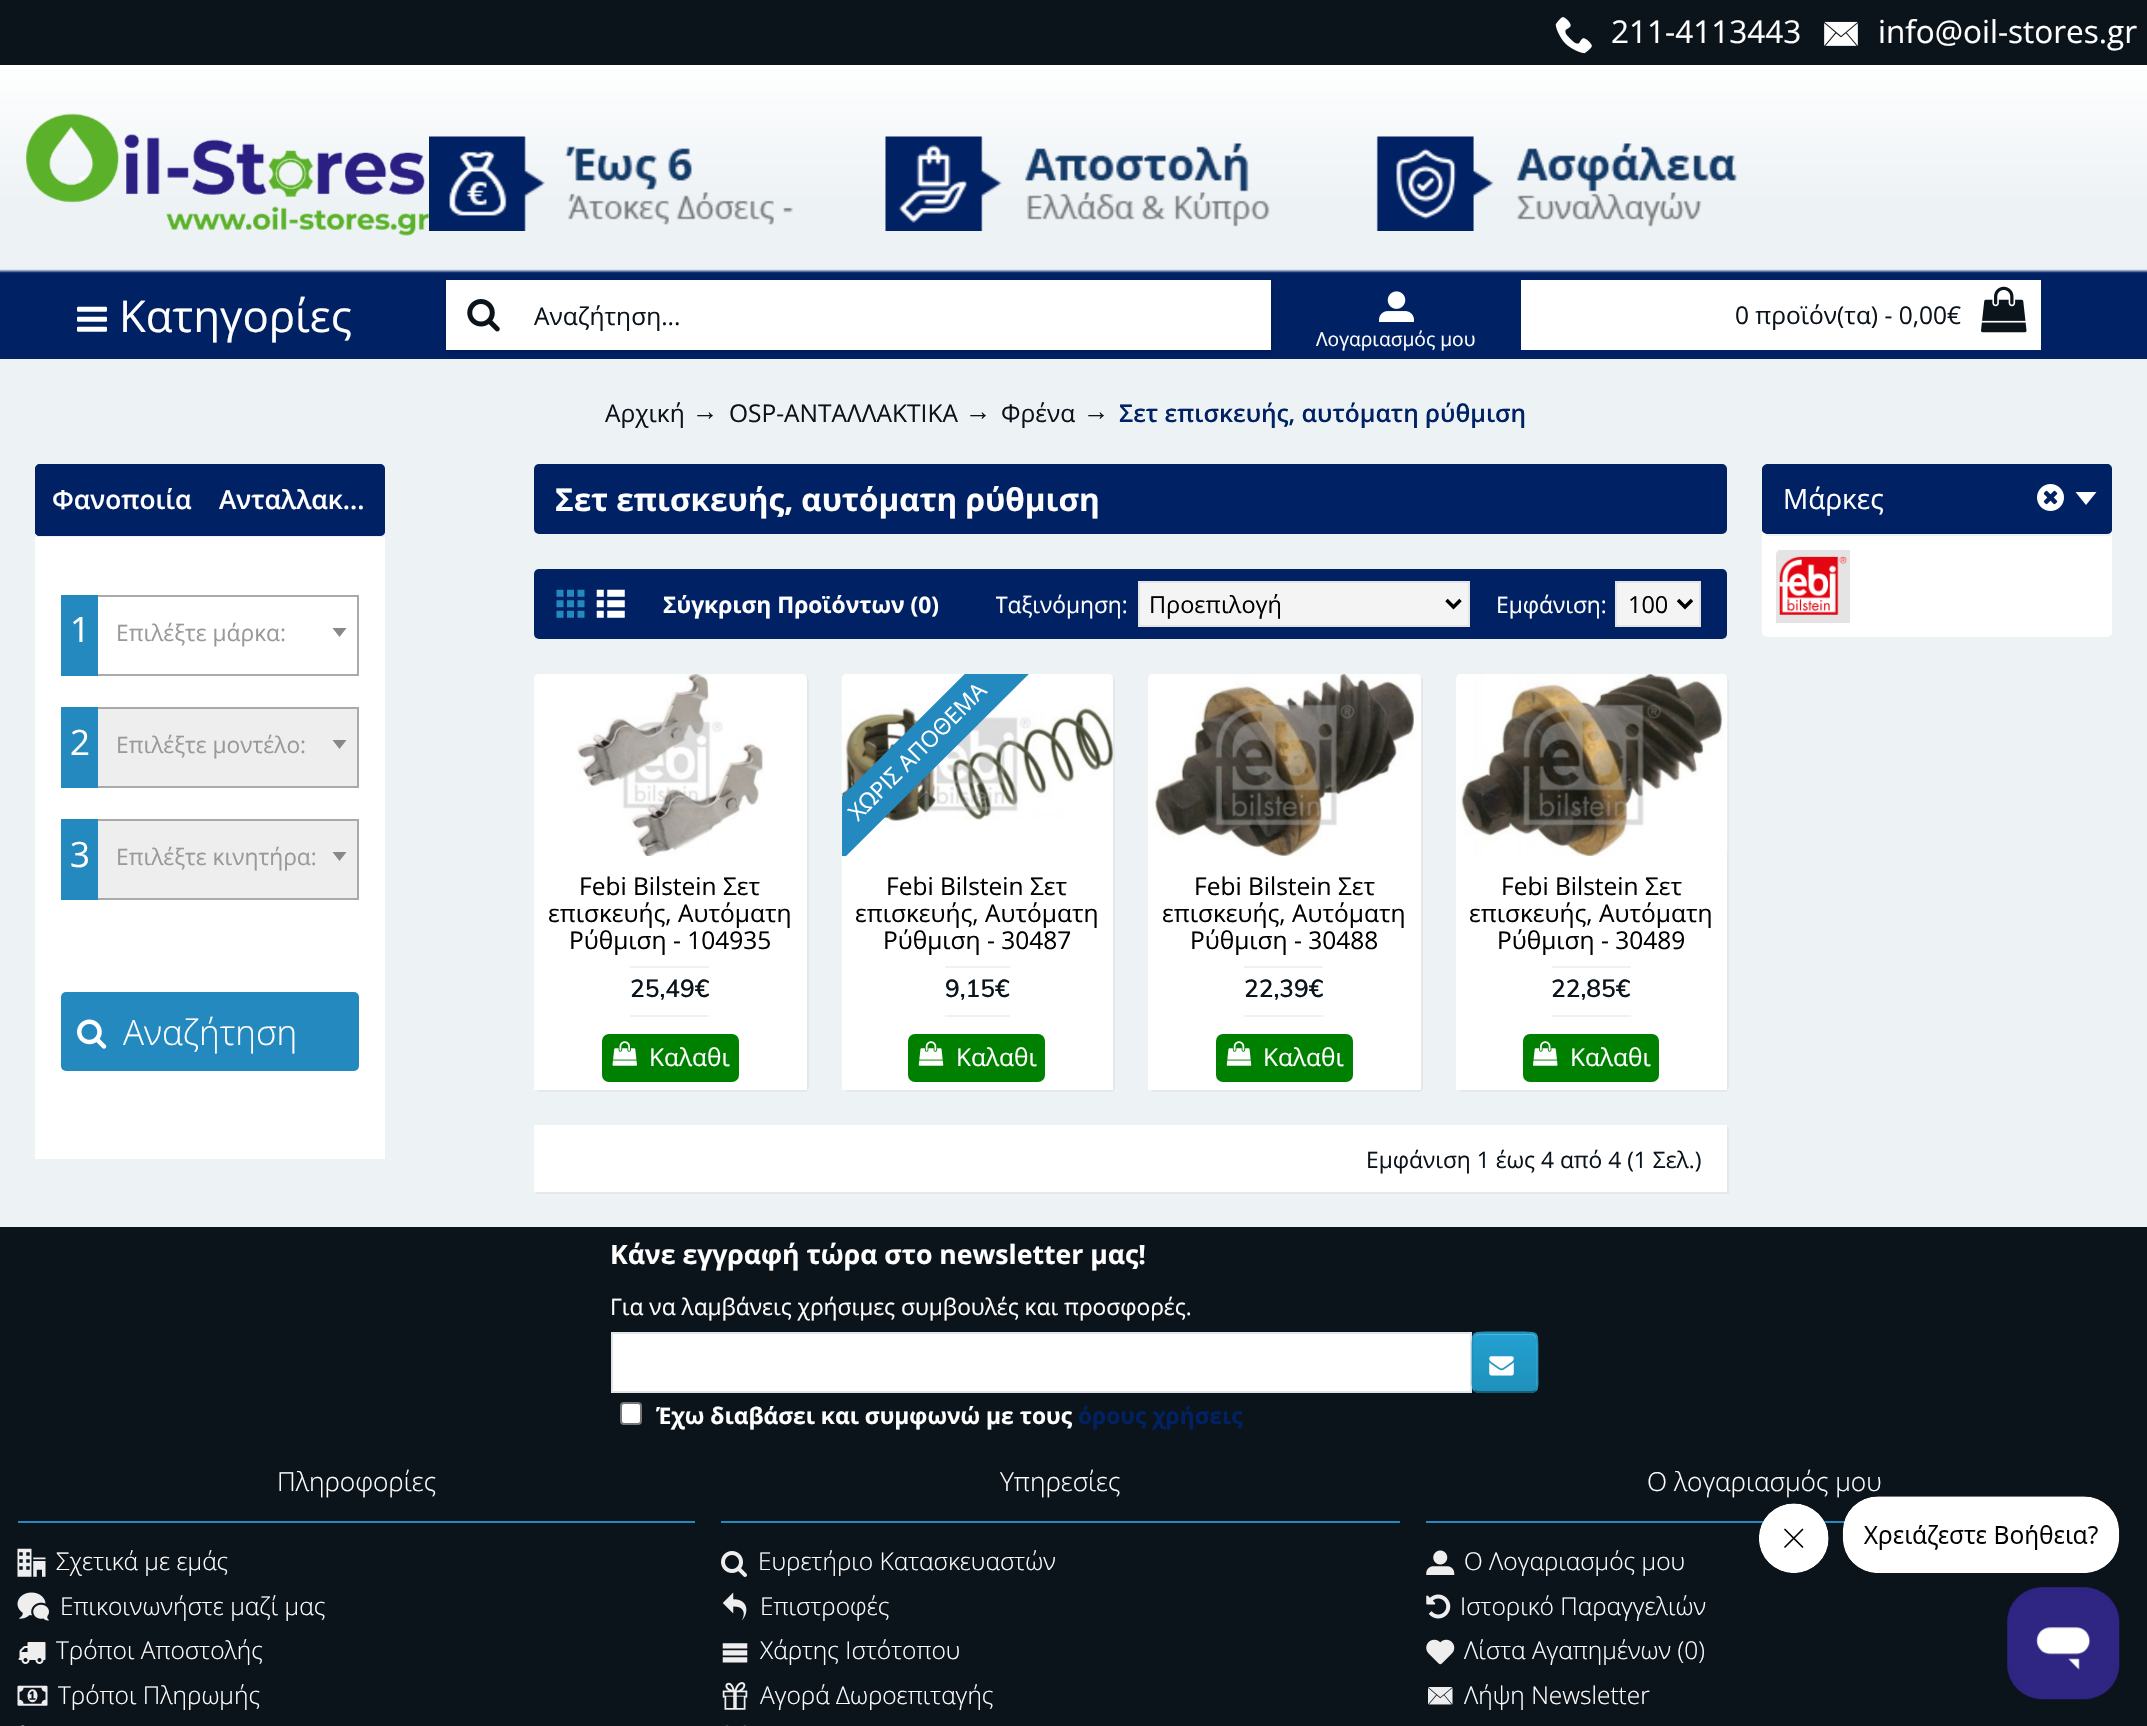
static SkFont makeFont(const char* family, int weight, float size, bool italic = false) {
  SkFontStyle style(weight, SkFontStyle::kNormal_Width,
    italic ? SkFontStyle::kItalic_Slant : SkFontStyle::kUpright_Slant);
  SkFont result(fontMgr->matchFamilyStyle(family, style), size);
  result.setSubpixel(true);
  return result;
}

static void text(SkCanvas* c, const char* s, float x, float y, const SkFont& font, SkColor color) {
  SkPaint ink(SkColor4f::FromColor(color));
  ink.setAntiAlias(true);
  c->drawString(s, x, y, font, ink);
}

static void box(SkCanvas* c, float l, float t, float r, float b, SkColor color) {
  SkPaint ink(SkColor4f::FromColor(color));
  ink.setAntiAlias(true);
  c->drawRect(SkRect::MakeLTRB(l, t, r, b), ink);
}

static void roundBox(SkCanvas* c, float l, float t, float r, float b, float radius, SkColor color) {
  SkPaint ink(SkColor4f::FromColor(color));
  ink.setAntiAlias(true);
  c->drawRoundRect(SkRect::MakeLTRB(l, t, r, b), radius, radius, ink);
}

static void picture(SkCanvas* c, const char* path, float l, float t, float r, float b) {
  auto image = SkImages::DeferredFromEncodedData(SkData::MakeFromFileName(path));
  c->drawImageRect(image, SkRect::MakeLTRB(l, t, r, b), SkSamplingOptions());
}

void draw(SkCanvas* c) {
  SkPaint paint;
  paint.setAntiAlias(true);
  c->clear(0xffedf2f5);
  {
    const SkColor colors[] = {0xff0b131b, 0xffffffff, 0xffedf2f5, 0xffedf2f5, 0xff002164, 0xff002164};
    const float stops[] = {0.18f, 0.18f, 0.56f, 0.75f, 0.76f, 1};
    const SkPoint ends[] = {{1074, 0}, {1074, 359}};
    paint.setShader(SkGradientShader::MakeLinear(ends, colors, stops, 6, SkTileMode::kClamp));
    paint.setAlpha(255);
  }
  c->drawRect(SkRect::MakeLTRB(0, 0, 2147, 359), paint);
  picture(c, "img_01.png", 1555, 17, 1592, 54);
  SkFont face1 = makeFont("Open Sans", 400, 31.5f);
  text(c, "211-4113443", 1611, 43, face1, 0xffffffff);
  picture(c, "img_02.png", 1824, 21, 1858, 46);
  text(c, "info@oil-stores.gr", 1878, 43, face1, 0xffffffff);
  picture(c, "img_03.png", 26, 113, 429, 236);
  picture(c, "img_04.png", 429, 136, 1737, 231);
  picture(c, "img_05.png", 77, 306, 107, 332);
  SkFont face2 = makeFont("Open Sans", 400, 43.75f);
  text(c, "Κατηγορίες", 119, 332, face2, 0xffffffff);
  paint.setShader(nullptr);
  paint.setColor(0x40000000);
  paint.setMaskFilter(SkMaskFilter::MakeBlur(kNormal_SkBlurStyle, 2.5f));
  c->drawRect(SkRect::MakeLTRB(446, 282, 1271, 352), paint);
  paint.setMaskFilter(nullptr);
  box(c, 446, 280, 1271, 350, 0xffffffff);
  picture(c, "img_06.png", 467, 299, 500, 332);
  SkFont face3 = makeFont("Open Sans", 400, 24.5f);
  text(c, "Αναζήτηση...", 534, 325, face3, 0xff0b131b);
  box(c, 1521, 280, 2041, 350, 0xffffffff);
  text(c, "0 προϊόν(τα) - 0,00€", 1735, 324, face3, 0xff0b131b);
  picture(c, "img_07.png", 1981, 286, 2027, 333);
  picture(c, "img_08.png", 1379, 291, 1414, 322);
  SkFont face4 = makeFont("Open Sans", 400, 19.25f);
  text(c, "Λογαριασμός μου", 1316, 346, face4, 0xffffffff);
  text(c, "Αρχική", 605, 422, face3, 0xff0b131b);
  SkFont face5 = makeFont("Liberation Serif", 400, 26.25f);
  text(c, "→", 692, 420, face5, 0xff0b131b);
  text(c, "OSP-ΑΝΤΑΛΛΑΚΤΙΚΑ", 729, 422, face3, 0xff0b131b);
  text(c, "→", 965, 420, face5, 0xff0b131b);
  text(c, "Φρένα", 1001, 422, face3, 0xff0b131b);
  text(c, "→", 1083, 420, face5, 0xff0b131b);
  SkFont face6 = makeFont("Open Sans", 600, 24.5f);
  text(c, "Σετ επισκευής, αυτόματη ρύθμιση", 1119, 422, face6, 0xff002164);
  paint.setColor(0xff002164);
  c->drawPath(SkPathBuilder().moveTo(40, 464).lineTo(380, 464).cubicTo(383, 464, 385, 466, 385, 469).lineTo(385, 532).cubicTo(385, 534, 383, 536, 380, 536).lineTo(40, 536).cubicTo(37, 536, 35, 534, 35, 532).lineTo(35, 469).cubicTo(35, 466, 37, 464, 40, 464).close().detach(), paint);
  c->drawPath(SkPathBuilder().moveTo(35, 469).lineTo(35, 532).cubicTo(35, 534, 37, 536, 40, 536).lineTo(208, 536).lineTo(208, 464).lineTo(39, 464).cubicTo(37, 465, 35, 467, 35, 469).close().detach(), paint);
  SkFont face7 = makeFont("Open Sans", 600, 26.25f);
  text(c, "Φανοποιία", 52, 509, face7, 0xffffffff);
  text(c, "Ανταλλακ...", 219, 509, face7, 0xffffffff);
  box(c, 35, 537, 385, 1159, 0xffffffff);
  paint.setStyle(SkPaint::kStroke_Style);
  paint.setStrokeWidth(2);
  paint.setColor(0xffaaaaaa);
  c->drawRect(SkRect::MakeLTRB(62, 596, 358, 675), paint);
  box(c, 61, 595, 98, 676, 0xff2489be);
  SkFont face8 = makeFont("Open Sans", 400, 35);
  text(c, "1", 70, 642, face8, 0xffffffff);
  SkFont face9 = makeFont("Open Sans", 400, 22.75f);
  text(c, "Επιλέξτε μάρκα:", 116, 641, face9, 0xff999999);
  paint.setStyle(SkPaint::kFill_Style);
  paint.setColor(0xff888888);
  c->drawPath(SkPathBuilder().moveTo(332.5f, 628).lineTo(346.5f, 628).lineTo(339.5f, 637).close().detach(), paint);
  box(c, 98, 709, 357, 786, 0xffeeeeee);
  paint.setStyle(SkPaint::kStroke_Style);
  paint.setColor(0xffaaaaaa);
  c->drawRect(SkRect::MakeLTRB(62, 708, 358, 787), paint);
  box(c, 61, 707, 98, 788, 0xff2489be);
  text(c, "2", 70, 755, face8, 0xffffffff);
  text(c, "Επιλέξτε μοντέλο:", 116, 753, face9, 0xff999999);
  paint.setStyle(SkPaint::kFill_Style);
  paint.setColor(0xff888888);
  c->drawPath(SkPathBuilder().moveTo(332.5f, 740).lineTo(346.5f, 740).lineTo(339.5f, 749).close().detach(), paint);
  box(c, 98, 821, 357, 898, 0xffeeeeee);
  paint.setStyle(SkPaint::kStroke_Style);
  paint.setColor(0xffaaaaaa);
  c->drawRect(SkRect::MakeLTRB(62, 820, 358, 899), paint);
  box(c, 61, 819, 98, 900, 0xff2489be);
  text(c, "3", 70, 867, face8, 0xffffffff);
  text(c, "Επιλέξτε κινητήρα:", 116, 865, face9, 0xff999999);
  paint.setStyle(SkPaint::kFill_Style);
  paint.setColor(0xff888888);
  c->drawPath(SkPathBuilder().moveTo(332.5f, 852).lineTo(346.5f, 852).lineTo(339.5f, 861).close().detach(), paint);
  roundBox(c, 61, 992, 359, 1071, 5, 0xff2489be);
  picture(c, "img_09.png", 77, 1019, 107, 1049);
  SkFont face10 = makeFont("Open Sans", 300, 35);
  text(c, "Αναζήτηση", 123, 1045, face10, 0xffffffff);
  roundBox(c, 534, 464, 1727, 534, 5, 0xff002164);
  SkFont face11 = makeFont("Open Sans", 700, 31.5f);
  text(c, "Σετ επισκευής, αυτόματη ρύθμιση", 555, 511, face11, 0xffffffff);
  roundBox(c, 534, 569, 1727, 639, 5, 0xff002164);
  picture(c, "img_10.png", 556, 589, 585, 618);
  picture(c, "img_11.png", 596, 589, 625, 618);
  SkFont face12 = makeFont("Open Sans", 700, 22.75f);
  text(c, "Σύγκριση Προϊόντων (0)", 663, 613, face12, 0xffffffff);
  c->save();
  c->clipRect(SkRect::MakeLTRB(996, 569, 1479, 639));
  text(c, "Ταξινόμηση:", 995, 613, face9, 0xffffffff);
  c->restore();
  paint.setColor(0xfff4f4f4);
  c->drawRect(SkRect::MakeLTRB(1139, 582, 1469, 626), paint);
  paint.setStyle(SkPaint::kStroke_Style);
  paint.setColor(0xffe4e4e4);
  c->drawRect(SkRect::MakeLTRB(1139, 582, 1469, 626), paint);
  paint.setStrokeWidth(3.5f);
  paint.setColor(0xff000000);
  c->drawPath(SkPathBuilder().moveTo(1446.5f, 600).lineTo(1453.5f, 607).lineTo(1460.5f, 600).detach(), paint);
  SkFont face13 = makeFont("Open Sans", 400, 23.5f);
  text(c, "Προεπιλογή", 1149, 613, face13, 0xff000000);
  text(c, "Εμφάνιση:", 1496, 613, face9, 0xffffffff);
  paint.setStyle(SkPaint::kFill_Style);
  paint.setColor(0xfff4f4f4);
  c->drawRect(SkRect::MakeLTRB(1616, 582, 1700, 626), paint);
  paint.setStyle(SkPaint::kStroke_Style);
  paint.setStrokeWidth(2);
  paint.setColor(0xffe4e4e4);
  c->drawRect(SkRect::MakeLTRB(1616, 582, 1700, 626), paint);
  paint.setStrokeWidth(3.5f);
  paint.setColor(0xff000000);
  c->drawPath(SkPathBuilder().moveTo(1678, 600).lineTo(1685, 607).lineTo(1692, 600).detach(), paint);
  text(c, "100", 1628, 613, face13, 0xff000000);
  paint.setStyle(SkPaint::kFill_Style);
  paint.setColor(0xffe4e8eb);
  c->drawPath(SkPathBuilder().moveTo(537, 1090).cubicTo(538, 1091, 539, 1092, 541, 1092).lineTo(804, 1092).cubicTo(807, 1092, 809, 1090, 809, 1087).lineTo(809, 681).cubicTo(809, 679, 808, 677, 806, 676).lineTo(807, 679).lineTo(807, 1085).cubicTo(807, 1088, 804, 1090, 802, 1090).lineTo(539, 1090).close().detach(), paint);
  roundBox(c, 534, 674, 807, 1090, 5, 0xffffffff);
  picture(c, "img_12.png", 534, 674, 765, 856);
  box(c, 534, 1086, 807, 1090, 0xffffffff);
  text(c, "Febi Bilstein Σετ", 579, 895, face3, 0xff000000);
  text(c, "επισκευής, Αυτόματη", 548, 922, face3, 0xff000000);
  text(c, "Ρύθμιση - 104935", 569, 949, face3, 0xff000000);
  box(c, 630, 966, 709, 968, 0xffedf2f5);
  box(c, 630, 1015, 709, 1017, 0xffedf2f5);
  SkFont face14 = makeFont("Muli", 600, 24.5f);
  text(c, "25,49€", 630, 997, face14, 0xff0b131b);
  roundBox(c, 602, 1034, 739, 1082, 7, 0xff008000);
  picture(c, "img_13.png", 612, 1041, 637, 1066);
  text(c, "Καλαθι", 649, 1066, face3, 0xffffffff);
  c->drawPath(SkPathBuilder().moveTo(845, 1090).cubicTo(846, 1091, 847, 1092, 849, 1092).lineTo(1110, 1092).cubicTo(1113, 1092, 1115, 1090, 1115, 1087).lineTo(1115, 681).cubicTo(1115, 679, 1114, 677, 1112, 677).lineTo(1113, 679).lineTo(1113, 1085).cubicTo(1113, 1088, 1111, 1090, 1108, 1090).lineTo(847, 1090).close().detach(), paint);
  roundBox(c, 842, 674, 1113, 1090, 5, 0xffffffff);
  picture(c, "img_14.png", 841, 674, 1114, 851);
  c->save();
  c->clipRect(SkRect::MakeLTRB(842, 674, 1113, 856));
  paint.setColor(0xff2489be);
  c->drawPath(SkPathBuilder().moveTo(781, 857).lineTo(1029, 610).lineTo(1061, 642).lineTo(813, 889).close().detach(), paint);
  c->restore();
  c->save();
  c->rotate(-45, 858, 822);
  text(c, "ΧΩΡΙΣ ΑΠΟΘΕΜΑ", 858, 822, face9, 0xffffffff);
  c->restore();
  box(c, 842, 1086, 1113, 1090, 0xffffffff);
  text(c, "Febi Bilstein Σετ", 886, 895, face3, 0xff000000);
  text(c, "επισκευής, Αυτόματη", 855, 922, face3, 0xff000000);
  text(c, "Ρύθμιση - 30487", 883, 949, face3, 0xff000000);
  box(c, 945, 966, 1010, 968, 0xffedf2f5);
  box(c, 945, 1015, 1010, 1017, 0xffedf2f5);
  text(c, "9,15€", 945, 997, face14, 0xff0b131b);
  roundBox(c, 908, 1034, 1045, 1082, 7, 0xff008000);
  picture(c, "img_15.png", 918, 1041, 944, 1066);
  text(c, "Καλαθι", 956, 1066, face3, 0xffffffff);
  paint.setColor(0xffe4e8eb);
  c->drawPath(SkPathBuilder().moveTo(1151, 1090).cubicTo(1152, 1091, 1153, 1092, 1155, 1092).lineTo(1418, 1092).cubicTo(1421, 1092, 1423, 1090, 1423, 1087).lineTo(1423, 681).cubicTo(1423, 679, 1422, 677, 1420, 677).lineTo(1421, 679).lineTo(1421, 1085).cubicTo(1421, 1088, 1419, 1090, 1416, 1090).lineTo(1153, 1090).close().detach(), paint);
  roundBox(c, 1148, 674, 1421, 1090, 5, 0xffffffff);
  picture(c, "img_16.png", 1149, 674, 1421, 856);
  box(c, 1148, 1086, 1421, 1090, 0xffffffff);
  text(c, "Febi Bilstein Σετ", 1194, 895, face3, 0xff000000);
  text(c, "επισκευής, Αυτόματη", 1162, 922, face3, 0xff000000);
  text(c, "Ρύθμιση - 30488", 1190, 949, face3, 0xff000000);
  box(c, 1244, 966, 1323, 968, 0xffedf2f5);
  box(c, 1244, 1015, 1323, 1017, 0xffedf2f5);
  text(c, "22,39€", 1244, 997, face14, 0xff0b131b);
  roundBox(c, 1216, 1034, 1353, 1082, 7, 0xff008000);
  picture(c, "img_15.png", 1226, 1041, 1252, 1066);
  text(c, "Καλαθι", 1263, 1066, face3, 0xffffffff);
  c->drawPath(SkPathBuilder().moveTo(1459, 1090).cubicTo(1460, 1091, 1461, 1092, 1463, 1092).lineTo(1724, 1092).cubicTo(1727, 1092, 1729, 1090, 1729, 1087).lineTo(1729, 681).cubicTo(1729, 679, 1728, 678, 1727, 677).lineTo(1727, 679).lineTo(1727, 1085).cubicTo(1727, 1088, 1725, 1090, 1722, 1090).lineTo(1461, 1090).close().detach(), paint);
  roundBox(c, 1456, 674, 1727, 1090, 5, 0xffffffff);
  picture(c, "img_17.png", 1457, 674, 1728, 856);
  box(c, 1456, 1086, 1727, 1090, 0xffffffff);
  text(c, "Febi Bilstein Σετ", 1501, 895, face3, 0xff000000);
  text(c, "επισκευής, Αυτόματη", 1469, 922, face3, 0xff000000);
  text(c, "Ρύθμιση - 30489", 1497, 949, face3, 0xff000000);
  box(c, 1552, 966, 1631, 968, 0xffedf2f5);
  box(c, 1552, 1015, 1631, 1017, 0xffedf2f5);
  text(c, "22,85€", 1551, 997, face14, 0xff0b131b);
  roundBox(c, 1523, 1034, 1659, 1082, 7, 0xff008000);
  picture(c, "img_18.png", 1533, 1041, 1558, 1066);
  text(c, "Καλαθι", 1570, 1066, face3, 0xffffffff);
  c->drawPath(SkPathBuilder().moveTo(536, 1192).lineTo(536, 1194).lineTo(1729, 1194).lineTo(1729, 1127).lineTo(1727, 1127).lineTo(1727, 1192).close().detach(), paint);
  box(c, 534, 1125, 1727, 1192, 0xffffffff);
  text(c, "Εμφάνιση 1 έως 4 από 4 (1 Σελ.)", 1366, 1168, face9, 0xff0b131b);
  roundBox(c, 1762, 464, 2112, 637, 5, 0xffffffff);
  paint.setColor(0xff002164);
  c->drawPath(SkPathBuilder().moveTo(1768, 464).lineTo(2107, 464).cubicTo(2110, 464, 2112, 466, 2112, 469).lineTo(2112, 530).cubicTo(2112, 532, 2110, 534, 2107, 534).lineTo(1768, 534).cubicTo(1765, 534, 1762, 532, 1762, 530).lineTo(1762, 469).cubicTo(1762, 466, 1765, 464, 1768, 464).close().detach(), paint);
  box(c, 1766, 534, 2111, 536, 0xffedf2f5);
  SkFont face15 = makeFont("Open Sans", 400, 28);
  text(c, "Μάρκες", 1783, 509, face15, 0xffffffff);
  paint.setColor(0xffffffff);
  c->drawPath(SkPathBuilder().moveTo(2096.5f, 492).lineTo(2075.5f, 492).lineTo(2086, 505).close().detach(), paint);
  paint.setColor(0xffe4e4e4);
  c->drawPath(SkPathBuilder().moveTo(1781, 550).cubicTo(1778, 550, 1776, 552, 1776, 555).lineTo(1776, 623).lineTo(1850, 623).lineTo(1850, 550).close().detach(), paint);
  picture(c, "img_19.png", 1779, 556, 1847, 615);
  picture(c, "img_20.png", 2037, 484, 2064, 511);
  box(c, 0, 1227, 2147, 1726, 0xff0b131b);
  SkFont face16 = makeFont("Open Sans", 700, 26.6f);
  text(c, "Κάνε εγγραφή τώρα στο newsletter μας!", 610, 1264, face16, 0xffffffff);
  text(c, "Για να λαμβάνεις χρήσιμες συμβουλές και προσφορές.", 610, 1315, face9, 0xffffffff);
  paint.setColor(0xffffffff);
  c->drawRect(SkRect::MakeLTRB(612, 1333, 1471, 1392), paint);
  paint.setStyle(SkPaint::kStroke_Style);
  paint.setStrokeWidth(2);
  paint.setColor(0xffdfe5e8);
  c->drawRect(SkRect::MakeLTRB(612, 1333, 1471, 1392), paint);
  roundBox(c, 1472, 1332, 1538, 1393, 7, 0xff229ac8);
  c->save();
  c->clipPath(SkPathBuilder().moveTo(1479, 1332).lineTo(1531, 1332).cubicTo(1535, 1332, 1538, 1335, 1538, 1339).lineTo(1538, 1386).cubicTo(1538, 1390, 1535, 1393, 1531, 1393).lineTo(1479, 1393).cubicTo(1475, 1393, 1472, 1390, 1472, 1386).lineTo(1472, 1339).cubicTo(1472, 1335, 1475, 1332, 1479, 1332).close().detach(), true);
  paint.setStyle(SkPaint::kFill_Style);
  {
    const SkColor colors[] = {0xff23a1d1, 0xff1f90bb};
    const float stops[] = {0, 1};
    const SkPoint ends[] = {{1505, 1334}, {1505, 1391}};
    paint.setShader(SkGradientShader::MakeLinear(ends, colors, stops, 2, SkTileMode::kClamp));
    paint.setAlpha(255);
  }
  c->drawRect(SkRect::MakeLTRB(1472, 1334, 1538, 1391), paint);
  c->restore();
  paint.setShader(nullptr);
  paint.setColor(0x33ffffff);
  c->drawPath(SkPathBuilder().moveTo(1479, 1335).lineTo(1532, 1335).cubicTo(1538, 1336, 1536, 1344, 1536, 1348).lineTo(1536, 1389).cubicTo(1537, 1388, 1537, 1387, 1537, 1386).lineTo(1537, 1339).cubicTo(1537, 1336, 1535, 1334, 1532, 1334).lineTo(1479, 1334).cubicTo(1476, 1334, 1474, 1336, 1474, 1339).lineTo(1474, 1340).cubicTo(1474, 1338, 1476, 1335, 1479, 1335).close().detach(), paint);
  paint.setStyle(SkPaint::kStroke_Style);
  paint.setStrokeWidth(1.8f);
  paint.setColor(0xff145e7a);
  c->drawPath(SkPathBuilder().moveTo(1535.5f, 1390.5f).cubicTo(1534.5f, 1391.5f, 1533, 1392, 1531, 1392).lineTo(1479, 1392).cubicTo(1477, 1392, 1475.5f, 1391.5f, 1474.5f, 1390.5f).detach(), paint);
  paint.setColor(0xff1f90bb);
  c->drawPath(SkPathBuilder().moveTo(1474.5f, 1390.5f).cubicTo(1471.5f, 1387.5f, 1472.5f, 1381.5f, 1472.5f, 1378).lineTo(1472.5f, 1346.5f).cubicTo(1472.5f, 1332, 1473, 1332.5f, 1487.5f, 1332.5f).lineTo(1522.5f, 1332.5f).cubicTo(1537, 1332.5f, 1537.5f, 1332, 1537.5f, 1346.5f).lineTo(1537.5f, 1378).cubicTo(1537.5f, 1381.5f, 1538.5f, 1387.5f, 1535.5f, 1390.5f).detach(), paint);
  picture(c, "img_21.png", 1489, 1356, 1514, 1376);
  paint.setStyle(SkPaint::kFill_Style);
  paint.setColor(0xffffffff);
  c->drawRoundRect(SkRect::MakeLTRB(621, 1403, 641, 1424), 3, 3, paint);
  paint.setStyle(SkPaint::kStroke_Style);
  paint.setStrokeWidth(2);
  paint.setColor(0xff767676);
  c->drawRoundRect(SkRect::MakeLTRB(621, 1403, 641, 1424), 3, 3, paint);
  text(c, "Έχω διαβάσει και συμφωνώ με τους", 656, 1424, face12, 0xffffffff);
  text(c, "όρους χρήσεις", 1078, 1424, face12, 0xff002164);
  box(c, 18, 1521, 695, 1523, 0xff2489be);
  SkFont face17 = makeFont("Open Sans", 300, 26.25f);
  text(c, "Πληροφορίες", 277, 1491, face17, 0xffffffff);
  picture(c, "img_22.png", 17, 1548, 46, 1577);
  SkFont face18 = makeFont("Open Sans", 300, 24.5f);
  text(c, "Σχετικά με εμάς", 56, 1570, face18, 0xffffffff);
  picture(c, "img_23.png", 17, 1592, 49, 1621);
  text(c, "Επικοινωνήστε μαζί μας", 60, 1615, face18, 0xffffffff);
  picture(c, "img_24.png", 18, 1642, 46, 1664);
  text(c, "Τρόποι Αποστολής", 56, 1659, face18, 0xffffffff);
  picture(c, "img_25.png", 17, 1685, 48, 1706);
  text(c, "Τρόποι Πληρωμής", 58, 1704, face18, 0xffffffff);
  picture(c, "img_26.png", 21, 1725, 25, 1726);
  box(c, 721, 1521, 1400, 1523, 0xff2489be);
  text(c, "Υπηρεσίες", 1000, 1491, face17, 0xffffffff);
  picture(c, "img_27.png", 721, 1551, 747, 1577);
  text(c, "Ευρετήριο Κατασκευαστών", 758, 1570, face18, 0xffffffff);
  picture(c, "img_28.png", 722, 1592, 747, 1621);
  text(c, "Επιστροφές", 760, 1615, face18, 0xffffffff);
  picture(c, "img_29.png", 722, 1643, 748, 1663);
  text(c, "Χάρτης Ιστότοπου", 760, 1659, face18, 0xffffffff);
  picture(c, "img_30.png", 722, 1682, 748, 1710);
  text(c, "Αγορά Δωροεπιταγής", 760, 1704, face18, 0xffffffff);
  picture(c, "img_31.png", 725, 1725, 747, 1726);
  box(c, 1426, 1521, 1845, 1523, 0xff2489be);
  text(c, "Ο λογαριασμός μου", 1647, 1491, face17, 0xffffffff);
  picture(c, "img_32.png", 1426, 1550, 1455, 1575);
  text(c, "O Λογαριασμός μου", 1464, 1570, face18, 0xffffffff);
  picture(c, "img_33.png", 1426, 1594, 1451, 1619);
  text(c, "Ιστορικό Παραγγελιών", 1460, 1615, face18, 0xffffffff);
  picture(c, "img_34.png", 1426, 1639, 1455, 1665);
  text(c, "Λίστα Αγαπημένων (0)", 1464, 1659, face18, 0xffffffff);
  picture(c, "img_35.png", 1428, 1687, 1453, 1705);
  text(c, "Λήψη Newsletter", 1464, 1704, face18, 0xffffffff);
  picture(c, "img_36.png", 1759, 1503, 1829, 1573);
  picture(c, "img_37.png", 1842, 1496, 2120, 1573);
  picture(c, "img_38.png", 2007, 1587, 2120, 1700);
}
